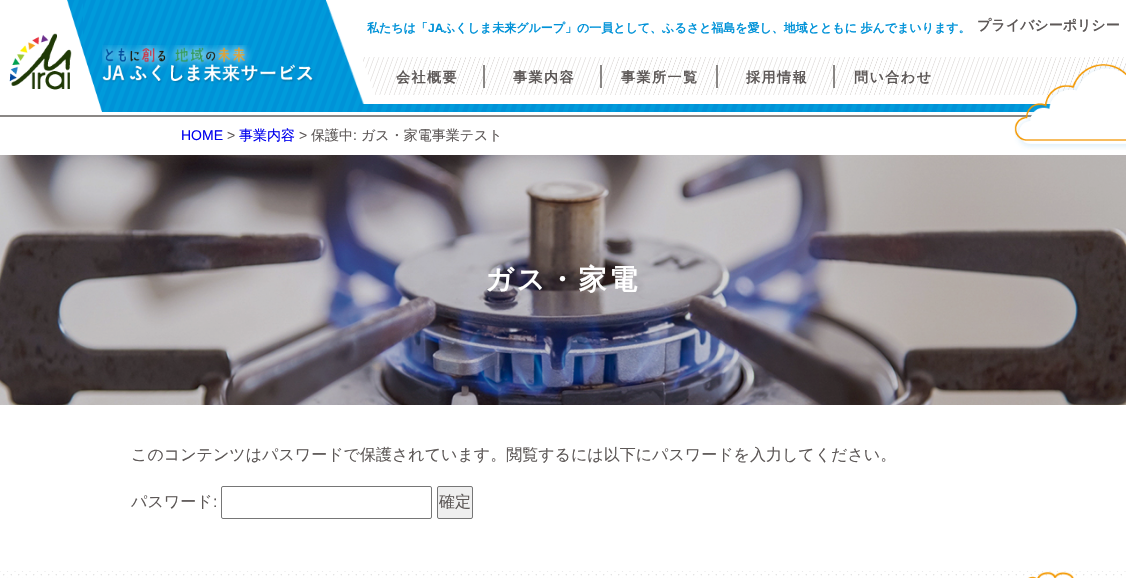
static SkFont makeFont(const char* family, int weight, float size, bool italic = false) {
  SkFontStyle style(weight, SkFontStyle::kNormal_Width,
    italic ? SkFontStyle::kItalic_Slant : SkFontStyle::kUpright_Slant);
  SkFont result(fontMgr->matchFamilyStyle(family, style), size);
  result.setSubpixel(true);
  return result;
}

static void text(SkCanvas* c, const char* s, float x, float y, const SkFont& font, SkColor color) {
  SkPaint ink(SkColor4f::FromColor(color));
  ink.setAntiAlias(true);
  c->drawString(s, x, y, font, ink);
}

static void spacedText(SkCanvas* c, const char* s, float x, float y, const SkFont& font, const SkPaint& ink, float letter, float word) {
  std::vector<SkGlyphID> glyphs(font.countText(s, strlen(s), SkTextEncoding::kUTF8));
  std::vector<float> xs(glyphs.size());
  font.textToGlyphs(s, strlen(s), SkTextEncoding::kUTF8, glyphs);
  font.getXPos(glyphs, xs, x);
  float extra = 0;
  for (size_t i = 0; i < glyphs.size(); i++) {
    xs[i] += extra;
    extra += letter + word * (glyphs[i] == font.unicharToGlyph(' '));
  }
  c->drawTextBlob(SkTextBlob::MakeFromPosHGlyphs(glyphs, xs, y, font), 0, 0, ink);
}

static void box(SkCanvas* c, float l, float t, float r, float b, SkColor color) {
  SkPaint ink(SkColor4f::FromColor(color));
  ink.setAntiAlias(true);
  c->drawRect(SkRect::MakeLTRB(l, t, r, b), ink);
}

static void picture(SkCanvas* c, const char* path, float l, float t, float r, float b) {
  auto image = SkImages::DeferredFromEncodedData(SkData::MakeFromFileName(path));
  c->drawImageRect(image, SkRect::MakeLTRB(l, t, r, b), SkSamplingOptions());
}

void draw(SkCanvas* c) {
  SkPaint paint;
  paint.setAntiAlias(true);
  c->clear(0xffffffff);
  picture(c, "img_01.png", 67, 0, 1051, 112);
  box(c, 0, 115, 1032, 117, 0xff8a8785);
  picture(c, "img_02.png", 0, 0, 102, 112);
  picture(c, "img_03.png", 9, 33, 72, 90);
  picture(c, "img_04.png", 102, 45, 314, 84);
  picture(c, "img_05.png", 326, 0, 1126, 104);
  SkFont face1 = makeFont("WenQuanYi Zen Hei", 700, 12);
  text(c, "私たちは「", 367, 32, face1, 0xff0092d8);
  SkFont face2 = makeFont("Liberation Sans", 700, 12);
  text(c, "JA", 428, 32, face2, 0xff0092d8);
  text(c, "ふくしま未来グループ」の一員として、ふるさと福島を愛し、地域とともに 歩んでまいります。", 443, 32, face1, 0xff0092d8);
  SkFont face3 = makeFont("WenQuanYi Zen Hei", 700, 14);
  text(c, "プライバシーポリシー", 977, 30, face3, 0xff5d5857);
  picture(c, "img_06.png", 363, 57, 1126, 95);
  paint.setColor(0xff5d5857);
  spacedText(c, "会社概要", 396, 82, face3, paint, 1.5f, 0);
  box(c, 483, 65, 485, 88, 0xff8a8785);
  spacedText(c, "事業内容", 513, 82, face3, paint, 1.5f, 0);
  box(c, 600, 65, 602, 88, 0xff8a8785);
  spacedText(c, "事業所一覧", 621, 82, face3, paint, 1.5f, 0);
  box(c, 716, 65, 718, 88, 0xff8a8785);
  spacedText(c, "採用情報", 746, 82, face3, paint, 1.5f, 0);
  box(c, 833, 65, 835, 88, 0xff8a8785);
  spacedText(c, "問い合わせ", 854, 82, face3, paint, 1.5f, 0);
  picture(c, "img_07.png", 1014, 64, 1126, 150);
  SkFont face4 = makeFont("Liberation Sans", 400, 14);
  text(c, "HOME", 181, 140, face4, 0xff0000ee);
  text(c, ">", 227, 140, face4, 0xff5d5857);
  SkFont face5 = makeFont("WenQuanYi Zen Hei", 500, 14);
  text(c, "事業内容", 239, 140, face5, 0xff0000ee);
  text(c, ">", 299, 140, face4, 0xff5d5857);
  text(c, "保護中", 311, 140, face5, 0xff5d5857);
  text(c, ":", 353, 140, face4, 0xff5d5857);
  text(c, "ガス・家電事業テスト", 361, 140, face5, 0xff5d5857);
  picture(c, "img_08.png", 0, 155, 1126, 405);
  SkFont face6 = makeFont("WenQuanYi Zen Hei", 700, 28);
  paint.setColor(0xffffffff);
  spacedText(c, "ガス・家電", 485, 289, face6, paint, 2.75f, 0);
  SkFont face7 = makeFont("WenQuanYi Zen Hei", 500, 16);
  text(c, "このコンテンツはパスワードで保護されています。閲覧するには以下にパスワードを入力してください。", 131, 460, face7, 0xff5d5857);
  text(c, "パスワード", 131, 507, face7, 0xff5d5857);
  SkFont face8 = makeFont("Liberation Sans", 400, 16);
  text(c, ":", 213, 507, face8, 0xff5d5857);
  paint.setStyle(SkPaint::kStroke_Style);
  paint.setStrokeWidth(1);
  paint.setColor(0xff767676);
  c->drawRoundRect(SkRect::MakeLTRB(221.5f, 486.5f, 431.5f, 518.5f), 1.5f, 1.5f, paint);
  paint.setStyle(SkPaint::kFill_Style);
  paint.setColor(0xffefefef);
  c->drawRoundRect(SkRect::MakeLTRB(437.5f, 486.5f, 472.5f, 518.5f), 1.5f, 1.5f, paint);
  paint.setStyle(SkPaint::kStroke_Style);
  paint.setColor(0xff767676);
  c->drawRoundRect(SkRect::MakeLTRB(437.5f, 486.5f, 472.5f, 518.5f), 1.5f, 1.5f, paint);
  text(c, "確定", 439, 507, face7, 0xff5d5857);
  picture(c, "img_09.png", 0, 571, 1126, 578);
}
